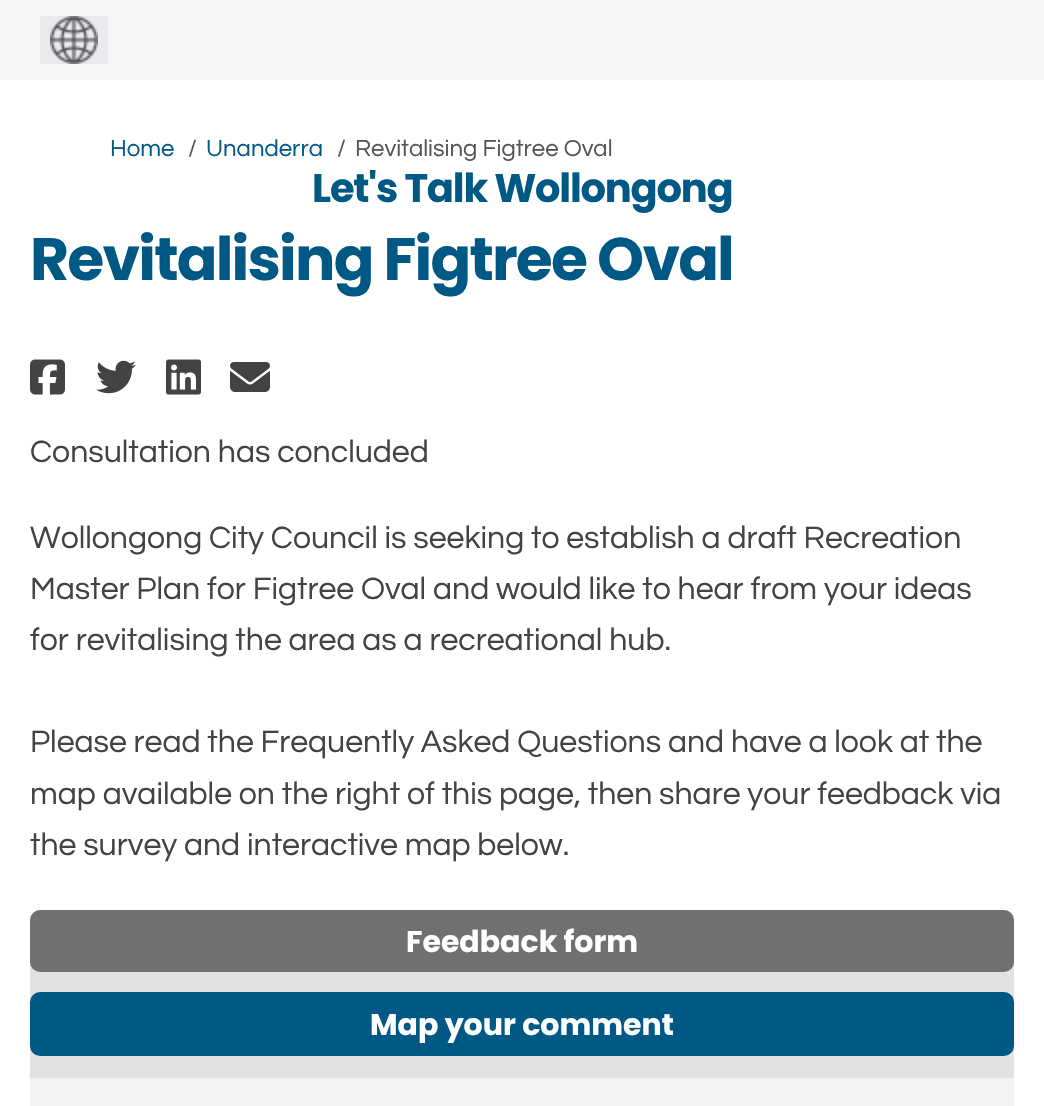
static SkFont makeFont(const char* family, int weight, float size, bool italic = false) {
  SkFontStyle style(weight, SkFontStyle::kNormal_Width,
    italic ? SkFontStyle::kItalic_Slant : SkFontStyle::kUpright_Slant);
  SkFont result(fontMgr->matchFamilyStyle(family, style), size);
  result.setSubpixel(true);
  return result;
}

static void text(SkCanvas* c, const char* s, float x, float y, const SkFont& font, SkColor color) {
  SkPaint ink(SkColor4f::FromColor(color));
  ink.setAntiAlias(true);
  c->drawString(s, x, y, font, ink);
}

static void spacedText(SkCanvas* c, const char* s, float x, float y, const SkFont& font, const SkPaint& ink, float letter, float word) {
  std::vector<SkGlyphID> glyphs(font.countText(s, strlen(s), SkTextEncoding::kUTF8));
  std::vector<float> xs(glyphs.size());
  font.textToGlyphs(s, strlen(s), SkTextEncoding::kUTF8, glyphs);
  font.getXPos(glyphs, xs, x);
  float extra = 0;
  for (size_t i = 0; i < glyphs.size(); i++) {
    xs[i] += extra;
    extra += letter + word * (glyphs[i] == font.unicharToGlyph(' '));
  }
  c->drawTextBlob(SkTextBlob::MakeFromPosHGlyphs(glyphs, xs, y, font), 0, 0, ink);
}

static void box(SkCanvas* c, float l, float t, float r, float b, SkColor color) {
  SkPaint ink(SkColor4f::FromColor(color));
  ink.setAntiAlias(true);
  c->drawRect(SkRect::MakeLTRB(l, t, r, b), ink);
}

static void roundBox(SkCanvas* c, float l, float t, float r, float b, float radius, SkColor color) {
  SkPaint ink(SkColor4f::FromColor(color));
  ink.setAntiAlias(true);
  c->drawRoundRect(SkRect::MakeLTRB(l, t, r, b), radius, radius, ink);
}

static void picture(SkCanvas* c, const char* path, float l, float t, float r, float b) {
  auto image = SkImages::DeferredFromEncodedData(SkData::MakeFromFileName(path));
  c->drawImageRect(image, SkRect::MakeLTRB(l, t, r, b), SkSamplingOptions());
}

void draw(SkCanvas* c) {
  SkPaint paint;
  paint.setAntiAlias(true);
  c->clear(0xffffffff);
  box(c, 0, 0, 1044, 80, 0xfff5f5f5);
  box(c, 40, 16, 108, 64, 0xffe8eaed);
  picture(c, "img_01.png", 50, 16, 98, 64);
  SkFont face1 = makeFont("Questrial", 400, 24);
  text(c, "Home", 110, 156, face1, 0xff005984);
  text(c, "/", 188, 156, face1, 0xff555555);
  text(c, "Unanderra", 206, 156, face1, 0xff005984);
  text(c, "/", 337, 156, face1, 0xff555555);
  text(c, "Revitalising Figtree Oval", 355, 156, face1, 0xff555555);
  SkFont face2 = makeFont("Poppins", 700, 60);
  paint.setColor(0xff005984);
  spacedText(c, "Revitalising Figtree Oval", 30, 280, face2, paint, -1.8f, 0);
  picture(c, "img_02.png", 30, 359, 65, 395);
  picture(c, "img_03.png", 96, 360, 136, 394);
  picture(c, "img_04.png", 166, 359, 201, 395);
  picture(c, "img_05.png", 230, 362, 270, 392);
  SkFont face3 = makeFont("Questrial", 400, 32);
  text(c, "Consultation has concluded", 30, 462, face3, 0xff434343);
  text(c, "Wollongong City Council is seeking to establish a draft Recreation", 30, 548, face3, 0xff434343);
  text(c, "Master Plan for Figtree Oval and would like to hear from your ideas", 30, 599, face3, 0xff434343);
  text(c, "for revitalising the area as a recreational hub.", 30, 650, face3, 0xff434343);
  text(c, "Please read the Frequently Asked Questions and have a look at the", 30, 752, face3, 0xff434343);
  text(c, "map available on the right of this page, then share your feedback via", 30, 804, face3, 0xff434343);
  text(c, "the survey and interactive map below.", 30, 855, face3, 0xff434343);
  roundBox(c, 30, 912, 1014, 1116, 10, 0xfff3f3f3);
  paint.setColor(0xffe2e2e2);
  c->drawPath(SkPathBuilder().moveTo(38, 912).lineTo(1006, 912).cubicTo(1010.5f, 912, 1014, 915.5f, 1014, 920).lineTo(1014, 1078).lineTo(30, 1078).lineTo(30, 920).cubicTo(30, 915.5f, 33.5f, 912, 38, 912).close().detach(), paint);
  roundBox(c, 30, 910, 1014, 972, 10, 0xff707070);
  SkFont face4 = makeFont("Poppins", 700, 30);
  text(c, "Feedback form", 406, 952, face4, 0xffffffff);
  roundBox(c, 30, 992, 1014, 1056, 10, 0xff005984);
  text(c, "Map your comment", 370, 1035, face4, 0xffffffff);
  SkFont face5 = makeFont("Poppins", 700, 40);
  paint.setColor(0xff005984);
  spacedText(c, "Let's Talk Wollongong", 312, 202, face5, paint, -1.2f, 0);
}
